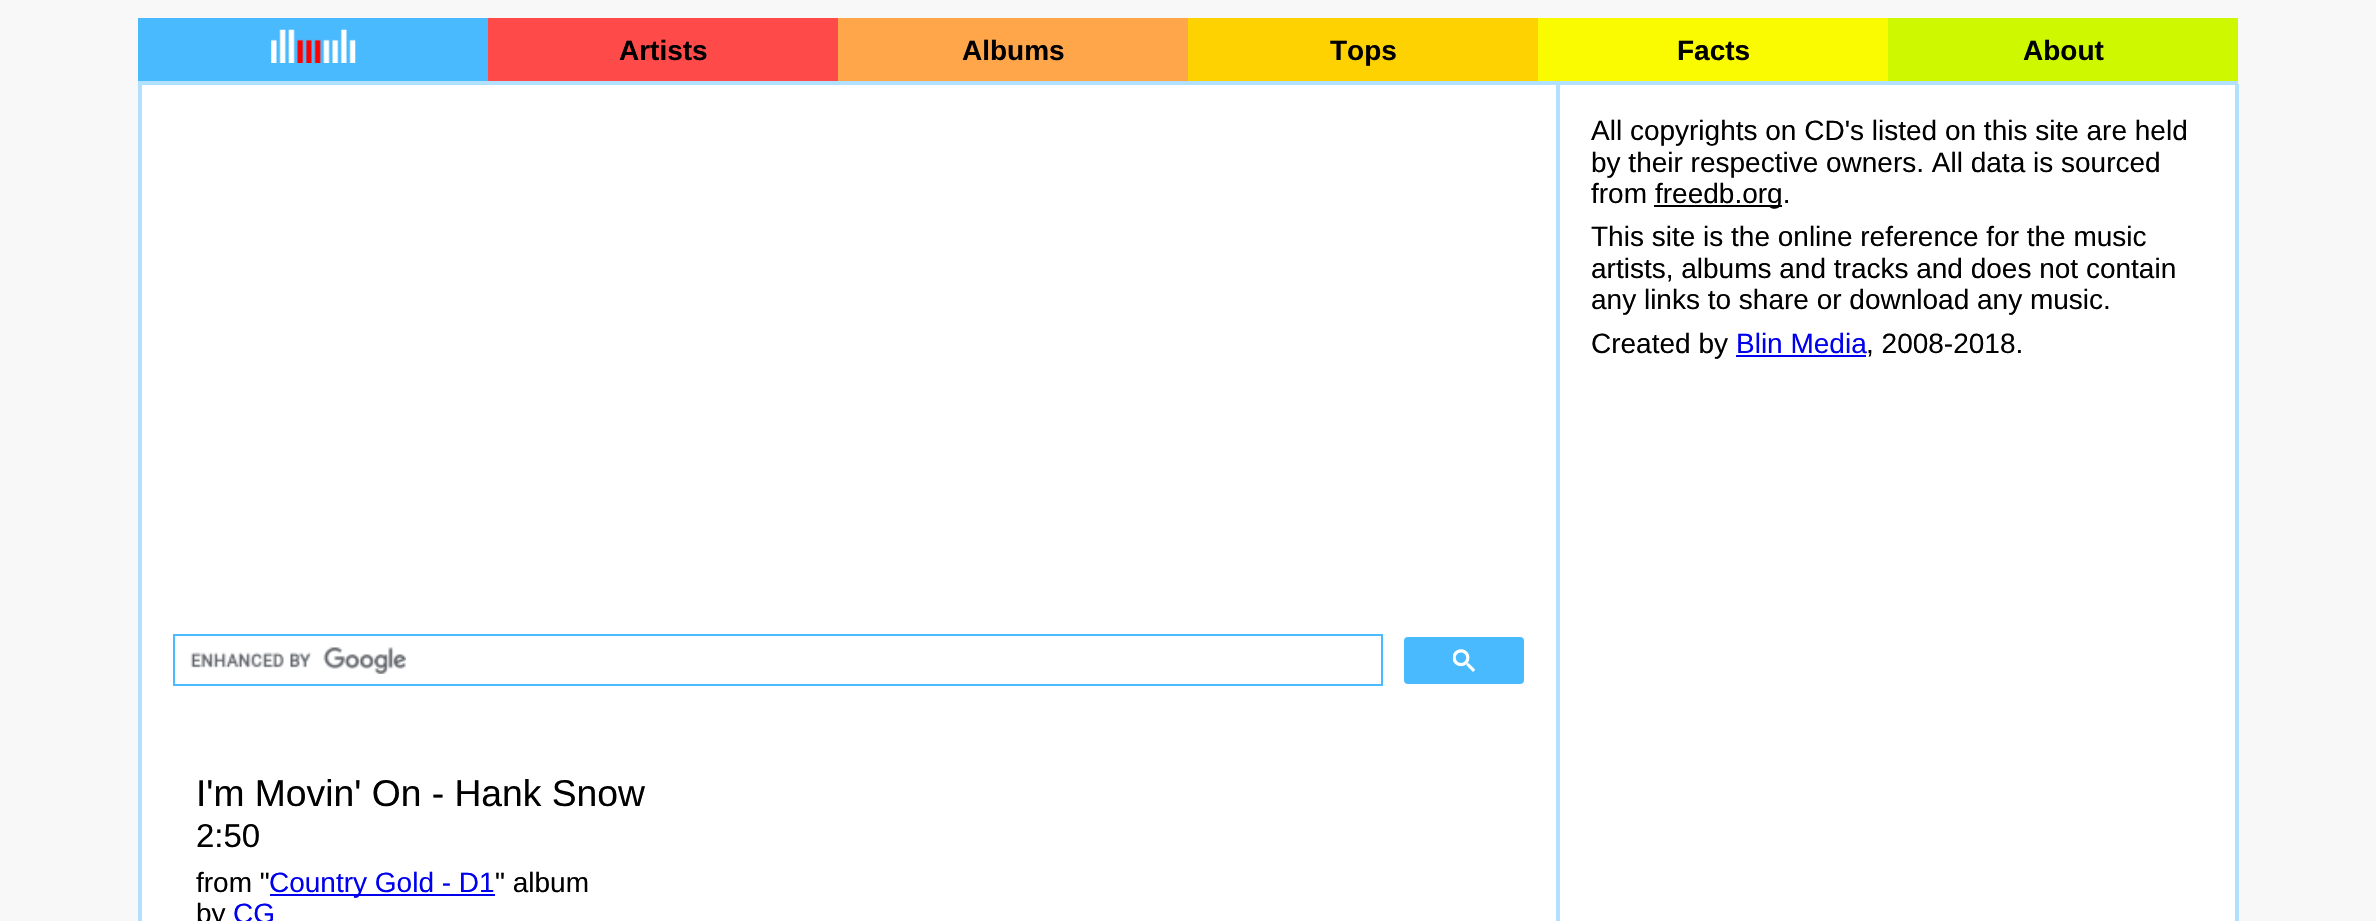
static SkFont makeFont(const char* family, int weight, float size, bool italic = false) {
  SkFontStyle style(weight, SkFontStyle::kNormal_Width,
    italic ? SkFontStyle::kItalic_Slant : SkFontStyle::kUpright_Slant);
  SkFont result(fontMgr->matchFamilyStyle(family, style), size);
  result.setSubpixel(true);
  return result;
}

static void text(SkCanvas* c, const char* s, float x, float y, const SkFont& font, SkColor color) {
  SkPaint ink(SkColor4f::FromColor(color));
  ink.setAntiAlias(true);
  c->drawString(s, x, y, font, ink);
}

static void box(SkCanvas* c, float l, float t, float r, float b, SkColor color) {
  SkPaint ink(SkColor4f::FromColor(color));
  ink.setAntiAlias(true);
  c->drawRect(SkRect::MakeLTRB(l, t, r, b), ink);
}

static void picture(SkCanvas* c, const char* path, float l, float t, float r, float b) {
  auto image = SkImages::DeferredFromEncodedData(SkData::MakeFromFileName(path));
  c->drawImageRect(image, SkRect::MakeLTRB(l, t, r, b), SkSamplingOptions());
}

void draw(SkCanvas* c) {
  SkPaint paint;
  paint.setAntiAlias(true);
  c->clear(0xfff8f8f8);
  box(c, 142, 85, 2235, 921, 0xffffffff);
  box(c, 138, 81, 2238, 85, 0xffb2e1ff);
  box(c, 138, 18, 488, 81, 0xff4abaff);
  picture(c, "img_01.png", 271, 29, 356, 63);
  box(c, 488, 18, 838, 81, 0xffff4a4a);
  SkFont face1 = makeFont("Liberation Sans", 700, 28);
  text(c, "Artists", 619, 60, face1, 0xff000000);
  box(c, 838, 18, 1188, 81, 0xffffa54a);
  text(c, "Albums", 962, 60, face1, 0xff000000);
  box(c, 1188, 18, 1538, 81, 0xfffdd200);
  text(c, "Tops", 1330, 60, face1, 0xff000000);
  box(c, 1538, 18, 1888, 81, 0xfffafa00);
  text(c, "Facts", 1677, 60, face1, 0xff000000);
  box(c, 1888, 18, 2238, 81, 0xffcef800);
  text(c, "About", 2023, 60, face1, 0xff000000);
  box(c, 2235, 84, 2239, 921, 0xffb2e1ff);
  SkFont face2 = makeFont("Liberation Sans", 400, 28);
  text(c, "All copyrights on CD's listed on this site are held", 1591, 140, face2, 0xff000000);
  text(c, "by their respective owners. All data is sourced", 1591, 172, face2, 0xff000000);
  text(c, "from", 1591, 203, face2, 0xff000000);
  box(c, 1654, 205, 1782, 207, 0xff000000);
  text(c, "freedb.org.", 1655, 203, face2, 0xff000000);
  text(c, "This site is the online reference for the music", 1591, 246, face2, 0xff000000);
  text(c, "artists, albums and tracks and does not contain", 1591, 278, face2, 0xff000000);
  text(c, "any links to share or download any music.", 1591, 309, face2, 0xff000000);
  text(c, "Created by", 1591, 353, face2, 0xff000000);
  text(c, "Blin Media", 1736, 353, face2, 0xff0000ee);
  box(c, 1736, 355, 1866, 357, 0xff0000ee);
  text(c, ", 2008-2018.", 1866, 353, face2, 0xff000000);
  box(c, 1556, 84, 1560, 921, 0xffb2e1ff);
  box(c, 138, 84, 142, 921, 0xffb2e1ff);
  paint.setStyle(SkPaint::kStroke_Style);
  paint.setStrokeWidth(2);
  paint.setColor(0xff4abaff);
  c->drawRect(SkRect::MakeLTRB(174, 635, 1382, 685), paint);
  picture(c, "img_02.png", 190, 647, 406, 674);
  paint.setStyle(SkPaint::kFill_Style);
  c->drawRoundRect(SkRect::MakeLTRB(1405, 638, 1523, 683), 3, 3, paint);
  paint.setStyle(SkPaint::kStroke_Style);
  c->drawRoundRect(SkRect::MakeLTRB(1405, 638, 1523, 683), 3, 3, paint);
  picture(c, "img_03.png", 1453, 649, 1475, 672);
  SkFont face3 = makeFont("Liberation Sans", 400, 37.25f);
  text(c, "I'm Movin' On - Hank Snow", 196, 806, face3, 0xff000000);
  SkFont face4 = makeFont("Liberation Sans", 400, 33);
  text(c, "2:50", 196, 847, face4, 0xff000000);
  text(c, "from \"", 196, 892, face2, 0xff000000);
  box(c, 270, 894, 495, 896, 0xff0000ee);
  text(c, "Country Gold - D1", 269, 892, face2, 0xff0000ee);
  text(c, "\" album", 495, 892, face2, 0xff000000);
  text(c, "by", 196, 923, face2, 0xff000000);
  text(c, "CG", 233, 923, face2, 0xff0000ee);
}
